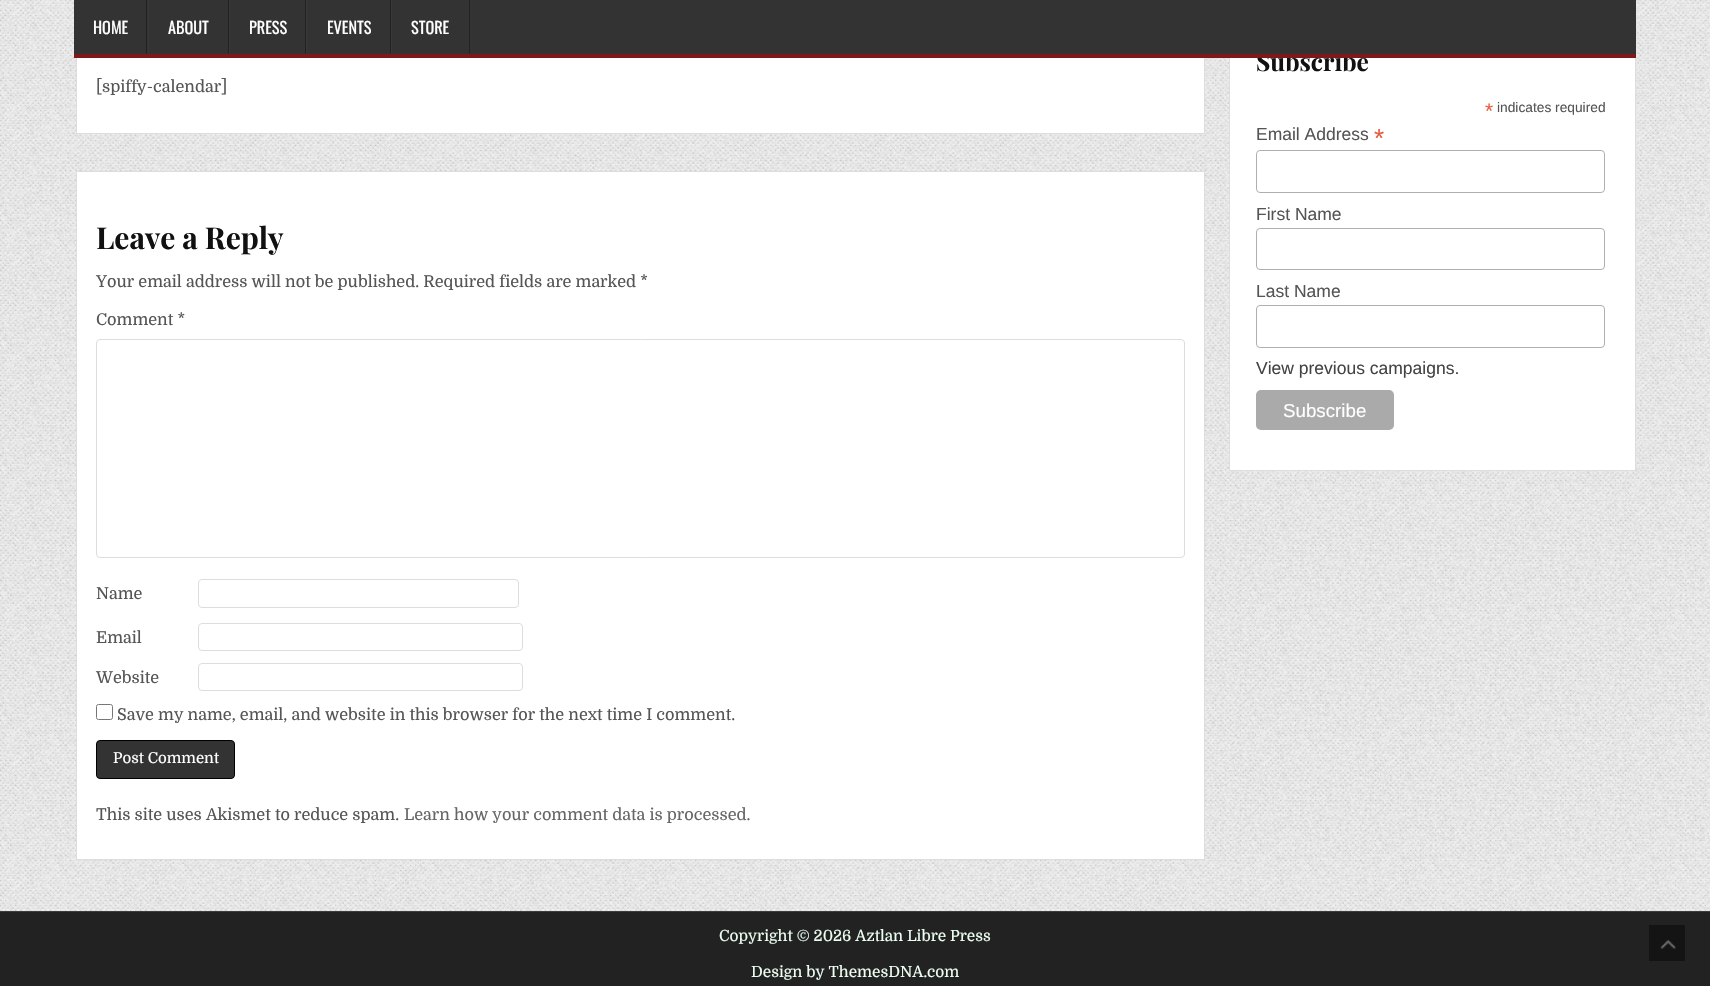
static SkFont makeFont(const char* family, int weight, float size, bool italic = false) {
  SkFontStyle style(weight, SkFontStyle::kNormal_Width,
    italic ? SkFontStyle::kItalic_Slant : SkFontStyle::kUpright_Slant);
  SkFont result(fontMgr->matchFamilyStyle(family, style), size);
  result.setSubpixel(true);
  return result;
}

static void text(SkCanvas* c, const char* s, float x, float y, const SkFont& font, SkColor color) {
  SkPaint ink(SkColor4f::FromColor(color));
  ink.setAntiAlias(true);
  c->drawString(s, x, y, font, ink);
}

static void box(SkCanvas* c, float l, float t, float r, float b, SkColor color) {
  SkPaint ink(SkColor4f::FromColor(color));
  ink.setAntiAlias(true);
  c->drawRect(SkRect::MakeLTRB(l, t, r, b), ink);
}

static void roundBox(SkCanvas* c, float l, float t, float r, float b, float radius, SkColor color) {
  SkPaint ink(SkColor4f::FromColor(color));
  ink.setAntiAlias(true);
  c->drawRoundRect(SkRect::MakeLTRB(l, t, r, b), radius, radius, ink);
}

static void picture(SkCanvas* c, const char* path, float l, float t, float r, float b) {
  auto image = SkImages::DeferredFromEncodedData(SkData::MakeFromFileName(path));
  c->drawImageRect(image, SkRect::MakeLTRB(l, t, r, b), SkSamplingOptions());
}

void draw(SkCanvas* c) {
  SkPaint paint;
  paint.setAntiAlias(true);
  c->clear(0xffffffff);
  picture(c, "img_01.png", 0, 0, 1710, 911);
  box(c, 77, 58, 1204, 133, 0xffffffff);
  paint.setStyle(SkPaint::kStroke_Style);
  paint.setStrokeWidth(1);
  paint.setColor(0xffdddddd);
  c->drawRect(SkRect::MakeLTRB(76.5f, 3.5f, 1204.5f, 133.5f), paint);
  box(c, 1230, 58, 1635, 470, 0xffffffff);
  c->drawRect(SkRect::MakeLTRB(1229.5f, 3.5f, 1635.5f, 470.5f), paint);
  SkFont face1 = makeFont("Playfair Display", 700, 24.5f);
  text(c, "Subscribe", 1256, 71, face1, 0xff111111);
  box(c, 74, 0, 1636, 54, 0xff333333);
  box(c, 74, 54, 1636, 58, 0xff7f181b);
  box(c, 146, 0, 147, 54, 0xff222222);
  SkFont face2 = makeFont("Oswald", 400, 16.25f);
  text(c, "HOME", 93, 34, face2, 0xffffffff);
  box(c, 228, 0, 229, 54, 0xff222222);
  box(c, 148, 0, 149, 54, 0xff383838);
  text(c, "ABOUT", 168, 34, face2, 0xffffffff);
  box(c, 305, 0, 306, 54, 0xff222222);
  box(c, 229, 0, 230, 54, 0xff383838);
  text(c, "PRESS", 249, 34, face2, 0xffffffff);
  box(c, 390, 0, 391, 54, 0xff222222);
  box(c, 306, 0, 307, 54, 0xff383838);
  text(c, "EVENTS", 327, 34, face2, 0xffffffff);
  box(c, 469, 0, 470, 54, 0xff222222);
  box(c, 391, 0, 392, 54, 0xff383838);
  text(c, "STORE", 411, 34, face2, 0xffffffff);
  SkFont face3 = makeFont("Domine", 400, 16.25f);
  text(c, "[spiffy-calendar]", 96, 92, face3, 0xff555555);
  paint.setStyle(SkPaint::kFill_Style);
  paint.setColor(0xffffffff);
  c->drawRect(SkRect::MakeLTRB(76.5f, 171.5f, 1204.5f, 859.5f), paint);
  paint.setStyle(SkPaint::kStroke_Style);
  paint.setColor(0xffdddddd);
  c->drawRect(SkRect::MakeLTRB(76.5f, 171.5f, 1204.5f, 859.5f), paint);
  SkFont face4 = makeFont("Playfair Display", 700, 30);
  text(c, "Leave a Reply", 96, 249, face4, 0xff111111);
  text(c, "Your email address will not be published. Required fields are marked *", 96, 287, face3, 0xff555555);
  text(c, "Comment *", 96, 325, face3, 0xff555555);
  c->drawRoundRect(SkRect::MakeLTRB(96.5f, 339.5f, 1184.5f, 557.5f), 3.5f, 3.5f, paint);
  text(c, "Name", 96, 599, face3, 0xff555555);
  c->drawRoundRect(SkRect::MakeLTRB(198.5f, 579.5f, 518.5f, 607.5f), 3.5f, 3.5f, paint);
  text(c, "Email", 96, 643, face3, 0xff555555);
  c->drawRoundRect(SkRect::MakeLTRB(198.5f, 623.5f, 522.5f, 650.5f), 3.5f, 3.5f, paint);
  text(c, "Website", 96, 683, face3, 0xff555555);
  c->drawRoundRect(SkRect::MakeLTRB(198.5f, 663.5f, 522.5f, 690.5f), 3.5f, 3.5f, paint);
  paint.setColor(0xff767676);
  c->drawRoundRect(SkRect::MakeLTRB(96.5f, 704.5f, 112.5f, 719.5f), 2, 2, paint);
  text(c, "Save my name, email, and website in this browser for the next time I comment.", 117, 720, face3, 0xff555555);
  paint.setStyle(SkPaint::kFill_Style);
  paint.setColor(0xff333333);
  c->drawRoundRect(SkRect::MakeLTRB(96.5f, 740.5f, 234.5f, 778.5f), 3.5f, 3.5f, paint);
  paint.setStyle(SkPaint::kStroke_Style);
  paint.setColor(0xff000000);
  c->drawRoundRect(SkRect::MakeLTRB(96.5f, 740.5f, 234.5f, 778.5f), 3.5f, 3.5f, paint);
  SkFont face5 = makeFont("Domine", 400, 15);
  text(c, "Post Comment", 113, 763, face5, 0xffffffff);
  text(c, "This site uses Akismet to reduce spam.", 96, 820, face3, 0xff555555);
  text(c, "Learn how your comment data is processed.", 404, 820, face3, 0xff666666);
  SkFont face6 = makeFont("Liberation Sans", 400, 21);
  text(c, "*", 1485, 118, face6, 0xffe85c41);
  SkFont face7 = makeFont("Liberation Sans", 400, 13.75f);
  text(c, "indicates required", 1497, 112, face7, 0xff555555);
  SkFont face8 = makeFont("Liberation Sans", 400, 17.5f);
  text(c, "Email Address", 1256, 140, face8, 0xff555555);
  SkFont face9 = makeFont("Liberation Sans", 400, 26);
  text(c, "*", 1374, 147, face9, 0xffe85c41);
  paint.setColor(0xffabb0b2);
  c->drawRoundRect(SkRect::MakeLTRB(1256.5f, 150.5f, 1604.5f, 192.5f), 3.5f, 3.5f, paint);
  text(c, "First Name", 1256, 220, face8, 0xff555555);
  c->drawRoundRect(SkRect::MakeLTRB(1256.5f, 228.5f, 1604.5f, 269.5f), 3.5f, 3.5f, paint);
  text(c, "Last Name", 1256, 297, face8, 0xff555555);
  c->drawRoundRect(SkRect::MakeLTRB(1256.5f, 305.5f, 1604.5f, 347.5f), 3.5f, 3.5f, paint);
  text(c, "View previous campaigns.", 1256, 374, face8, 0xff444444);
  roundBox(c, 1256, 390, 1394, 430, 5, 0xffaaaaaa);
  SkFont face10 = makeFont("Liberation Sans", 400, 18.75f);
  text(c, "Subscribe", 1283, 417, face10, 0xffffffff);
  box(c, 0, 912, 1710, 986, 0xff222222);
  box(c, 0, 911, 1710, 912, 0xff3d3d3d);
  SkFont face11 = makeFont("Domine", 400, 15.4f);
  text(c, "Copyright © 2026 Aztlan Libre Press", 719, 941, face11, 0xffecfff1);
  text(c, "Design by ThemesDNA.com", 751, 977, face11, 0xffecfff1);
  box(c, 1649, 925, 1685, 961, 0xff141414);
  picture(c, "img_02.png", 1660, 940, 1676, 949);
}
